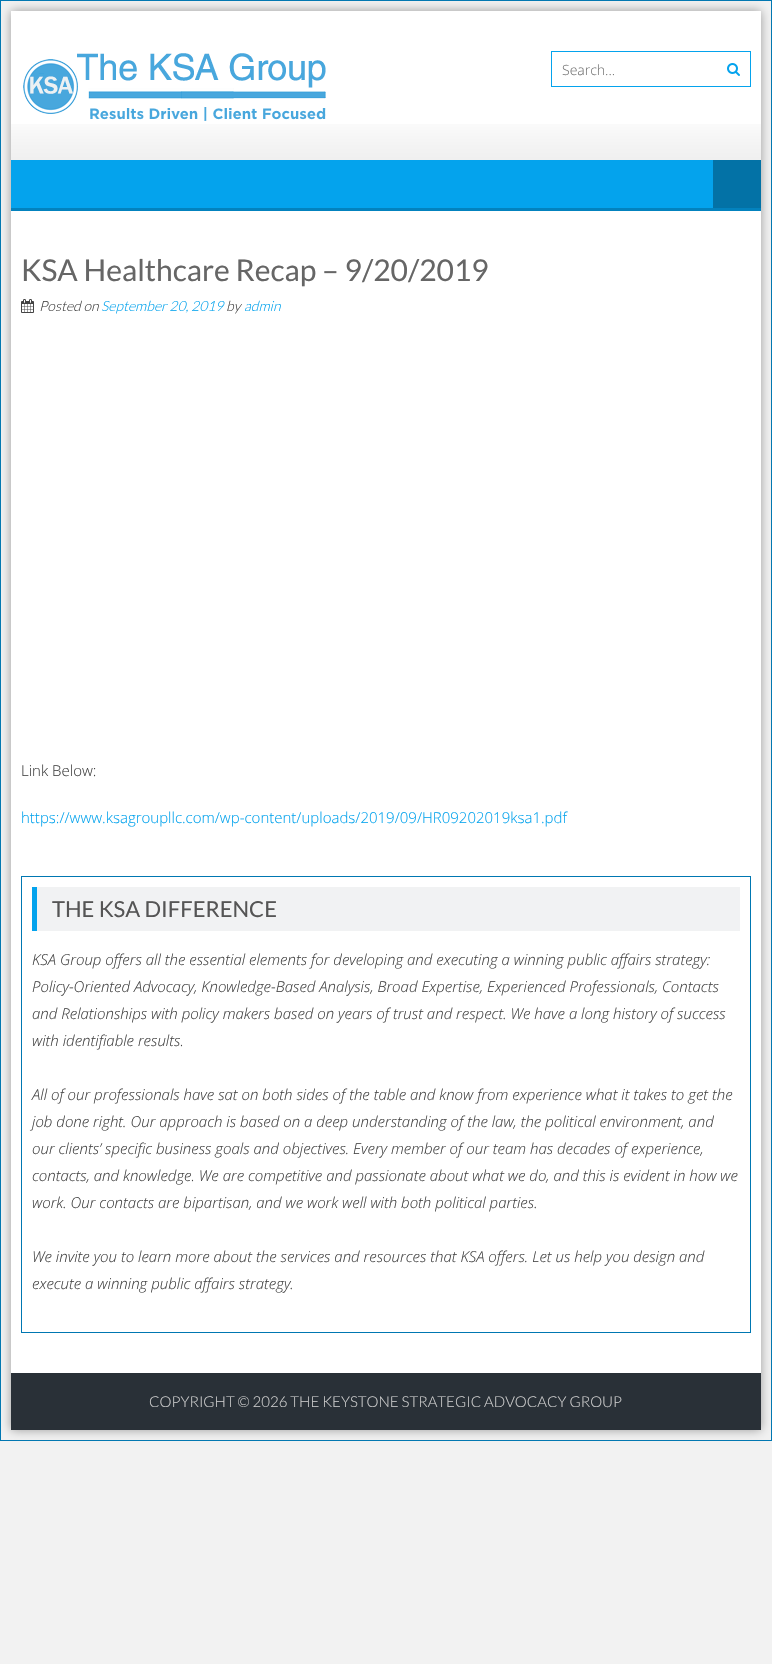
static SkFont makeFont(const char* family, int weight, float size, bool italic = false) {
  SkFontStyle style(weight, SkFontStyle::kNormal_Width,
    italic ? SkFontStyle::kItalic_Slant : SkFontStyle::kUpright_Slant);
  SkFont result(fontMgr->matchFamilyStyle(family, style), size);
  result.setSubpixel(true);
  return result;
}

static void text(SkCanvas* c, const char* s, float x, float y, const SkFont& font, SkColor color) {
  SkPaint ink(SkColor4f::FromColor(color));
  ink.setAntiAlias(true);
  c->drawString(s, x, y, font, ink);
}

static void box(SkCanvas* c, float l, float t, float r, float b, SkColor color) {
  SkPaint ink(SkColor4f::FromColor(color));
  ink.setAntiAlias(true);
  c->drawRect(SkRect::MakeLTRB(l, t, r, b), ink);
}

static void picture(SkCanvas* c, const char* path, float l, float t, float r, float b) {
  auto image = SkImages::DeferredFromEncodedData(SkData::MakeFromFileName(path));
  c->drawImageRect(image, SkRect::MakeLTRB(l, t, r, b), SkSamplingOptions());
}

void draw(SkCanvas* c) {
  SkPaint paint;
  paint.setAntiAlias(true);
  c->clear(0xfff2f2f2);
  paint.setStyle(SkPaint::kStroke_Style);
  paint.setStrokeWidth(1);
  paint.setColor(0xff0077b2);
  c->drawRect(SkRect::MakeLTRB(0.5f, 0.5f, 771.5f, 1440.5f), paint);
  paint.setStyle(SkPaint::kFill_Style);
  paint.setColor(0xff999999);
  paint.setMaskFilter(SkMaskFilter::MakeBlur(kNormal_SkBlurStyle, 5));
  c->drawRect(SkRect::MakeLTRB(11, 11, 761, 1430), paint);
  paint.setMaskFilter(nullptr);
  box(c, 11, 11, 761, 1373, 0xffffffff);
  picture(c, "img_01.png", 11, 124, 761, 160);
  picture(c, "img_02.png", 23, 53, 326, 121);
  paint.setStyle(SkPaint::kStroke_Style);
  paint.setColor(0xff04a3ed);
  c->drawRect(SkRect::MakeLTRB(551.5f, 51.5f, 750.5f, 86.5f), paint);
  SkFont face1 = makeFont("Open Sans", 300, 14);
  text(c, "Search...", 562, 75, face1, 0xff757575);
  picture(c, "img_03.png", 727, 63, 740, 76);
  box(c, 11, 160, 713, 208, 0xff04a3ed);
  box(c, 11, 208, 761, 211, 0xff0382be);
  box(c, 713, 160, 761, 208, 0xff0372a6);
  SkFont face2 = makeFont("Lato", 400, 30);
  text(c, "KSA Healthcare Recap – 9/20/2019", 21, 281, face2, 0xff666666);
  picture(c, "img_04.png", 21, 299, 34, 313);
  SkFont face3 = makeFont("Lato", 300, 14, true);
  text(c, "Posted on", 39, 311, face3, 0xff444444);
  text(c, "September 20, 2019", 101, 311, face3, 0xff04a3ed);
  text(c, "by", 226, 311, face3, 0xff444444);
  text(c, "admin", 244, 311, face3, 0xff04a3ed);
  SkFont face4 = makeFont("Open Sans", 300, 15);
  text(c, "Link Below:", 21, 776, face4, 0xff444444);
  text(c, "https://www.ksagroupllc.com/wp-content/uploads/2019/09/HR09202019ksa1.pdf", 21, 823, face4, 0xff04a3ed);
  paint.setColor(0xff0077b2);
  c->drawRect(SkRect::MakeLTRB(21.5f, 876.5f, 750.5f, 1332.5f), paint);
  box(c, 37, 887, 740, 931, 0xfff1f2f3);
  box(c, 32, 887, 37, 931, 0xff04a3ed);
  SkFont face5 = makeFont("Lato", 400, 22);
  text(c, "THE KSA DIFFERENCE", 52, 917, face5, 0xff555555);
  SkFont face6 = makeFont("Open Sans", 300, 15, true);
  text(c, "KSA Group offers all the essential elements for developing and executing a winning public affairs strategy:", 32, 965, face6, 0xff444444);
  text(c, "Policy-Oriented Advocacy, Knowledge-Based Analysis, Broad Expertise, Experienced Professionals, Contacts", 32, 992, face6, 0xff444444);
  text(c, "and Relationships with policy makers based on years of trust and respect. We have a long history of success", 32, 1019, face6, 0xff444444);
  text(c, "with identifiable results.", 32, 1046, face6, 0xff444444);
  text(c, "All of our professionals have sat on both sides of the table and know from experience what it takes to get the", 32, 1100, face6, 0xff444444);
  text(c, "job done right. Our approach is based on a deep understanding of the law, the political environment, and", 32, 1127, face6, 0xff444444);
  text(c, "our clients’ specific business goals and objectives. Every member of our team has decades of experience,", 32, 1154, face6, 0xff444444);
  text(c, "contacts, and knowledge. We are competitive and passionate about what we do, and this is evident in how we", 32, 1181, face6, 0xff444444);
  text(c, "work. Our contacts are bipartisan, and we work well with both political parties.", 32, 1208, face6, 0xff444444);
  text(c, "We invite you to learn more about the services and resources that KSA offers. Let us help you design and", 32, 1262, face6, 0xff444444);
  text(c, "execute a winning public affairs strategy.", 32, 1289, face6, 0xff444444);
  box(c, 11, 1373, 761, 1430, 0xff293037);
  SkFont face7 = makeFont("Lato", 300, 15);
  text(c, "COPYRIGHT © 2026 THE KEYSTONE STRATEGIC ADVOCACY GROUP", 149, 1407, face7, 0xffcccccc);
}
